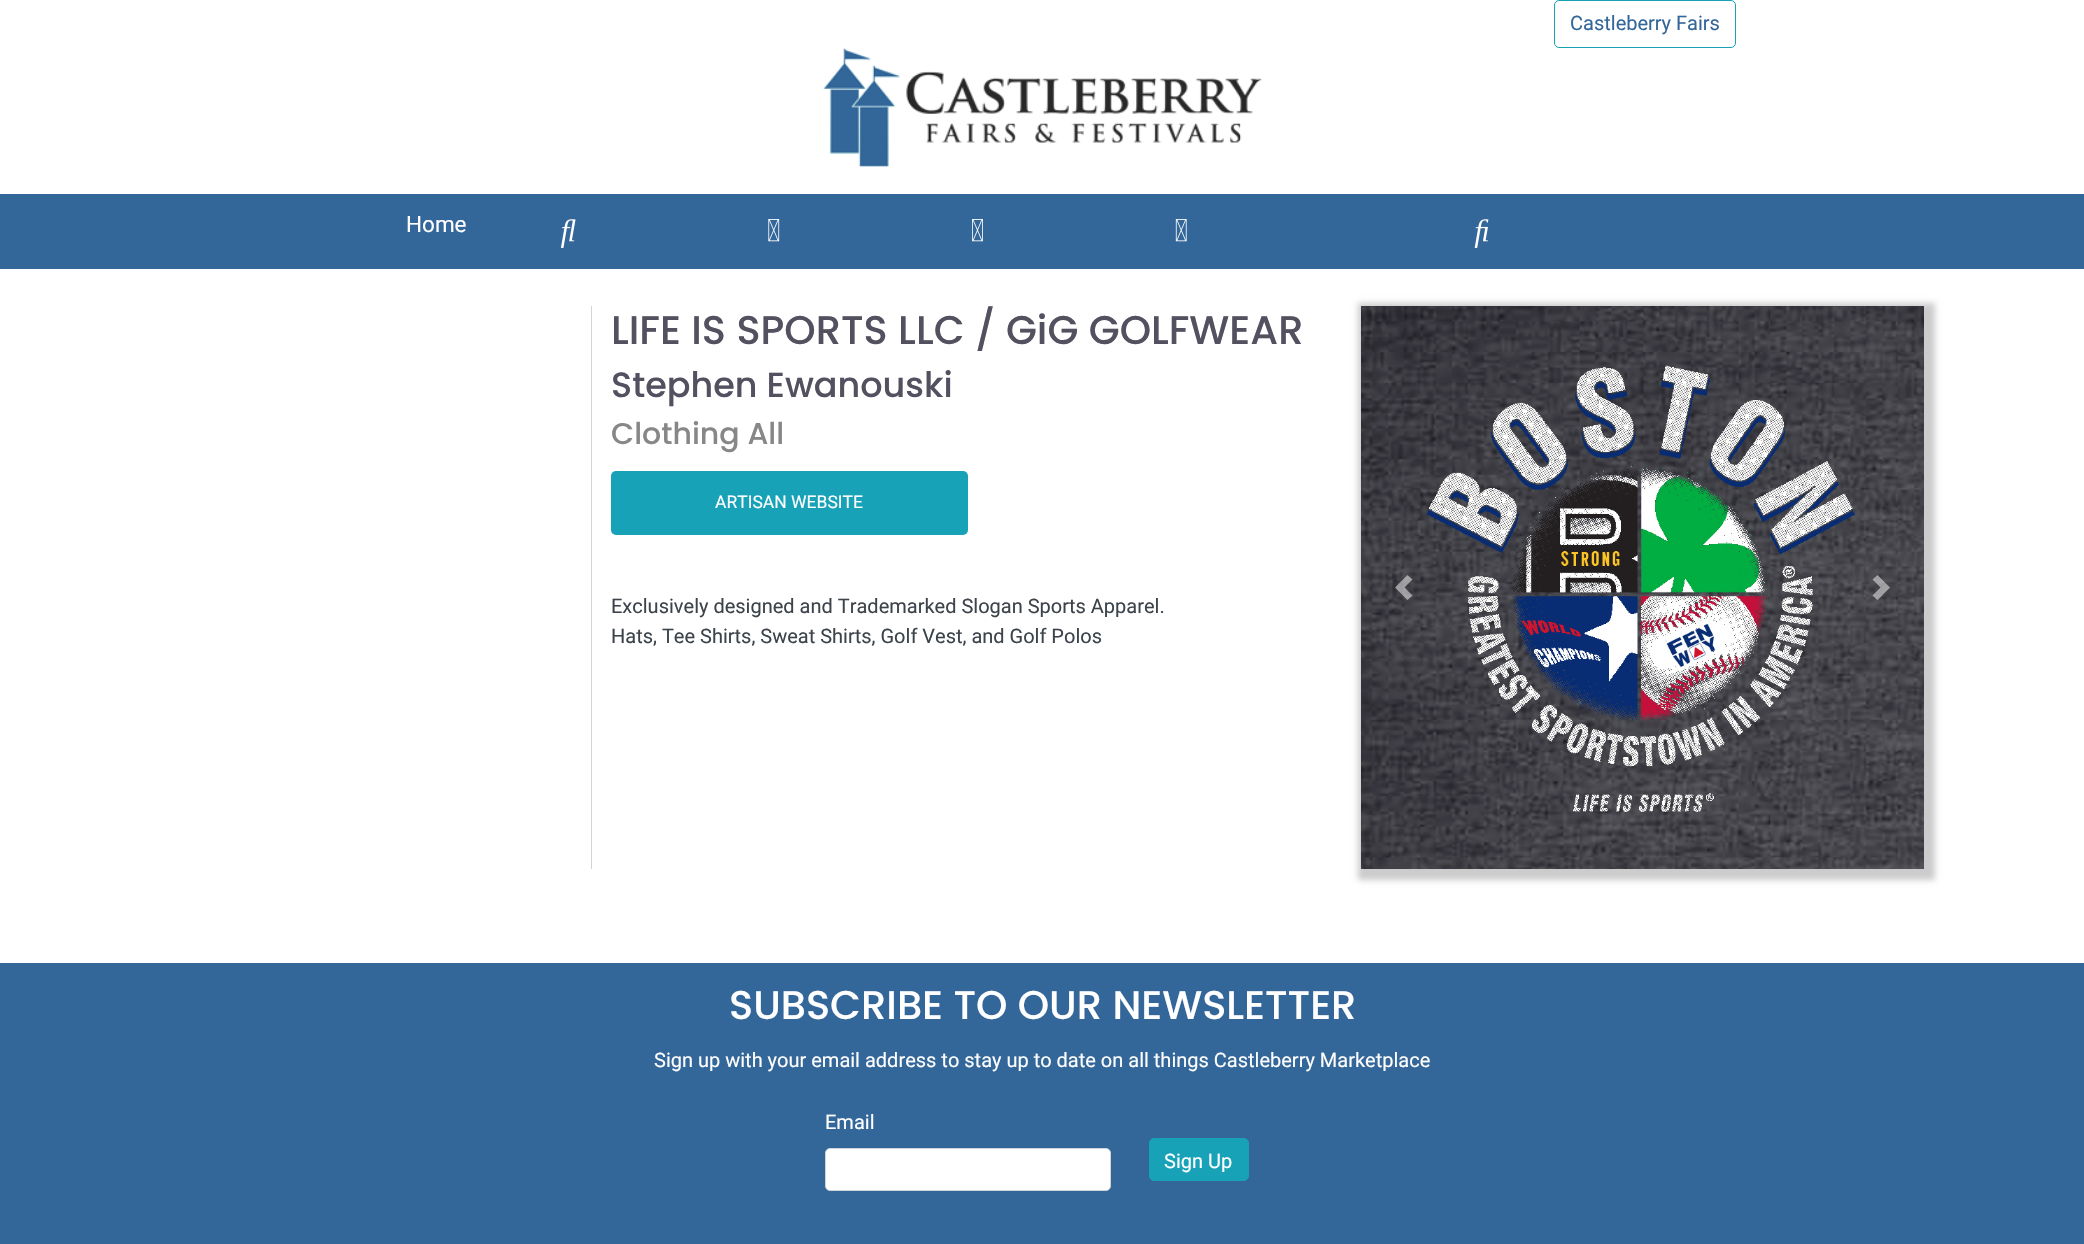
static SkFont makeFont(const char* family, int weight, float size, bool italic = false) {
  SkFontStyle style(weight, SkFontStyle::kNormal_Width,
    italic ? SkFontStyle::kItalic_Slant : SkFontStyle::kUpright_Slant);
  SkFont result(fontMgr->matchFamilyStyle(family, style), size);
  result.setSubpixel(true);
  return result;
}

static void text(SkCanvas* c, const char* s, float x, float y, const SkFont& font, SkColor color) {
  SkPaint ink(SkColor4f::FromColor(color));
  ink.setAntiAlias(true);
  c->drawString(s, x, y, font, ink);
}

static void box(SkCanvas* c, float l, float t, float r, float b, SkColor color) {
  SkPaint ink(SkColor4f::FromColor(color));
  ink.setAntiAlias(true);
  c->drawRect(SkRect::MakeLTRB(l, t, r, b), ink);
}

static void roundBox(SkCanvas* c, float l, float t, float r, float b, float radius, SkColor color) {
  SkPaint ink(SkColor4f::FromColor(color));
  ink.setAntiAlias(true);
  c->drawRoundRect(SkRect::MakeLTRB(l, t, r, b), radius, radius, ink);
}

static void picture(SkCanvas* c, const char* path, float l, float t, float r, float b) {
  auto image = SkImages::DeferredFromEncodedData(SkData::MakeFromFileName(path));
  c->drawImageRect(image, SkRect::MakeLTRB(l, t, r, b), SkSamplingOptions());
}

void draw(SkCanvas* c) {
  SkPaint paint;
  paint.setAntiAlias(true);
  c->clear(0xffffffff);
  paint.setStyle(SkPaint::kStroke_Style);
  paint.setStrokeWidth(1);
  paint.setColor(0xff17a2b8);
  c->drawRoundRect(SkRect::MakeLTRB(1554.5f, 0.5f, 1735.5f, 47.5f), 4.5f, 4.5f, paint);
  SkFont face1 = makeFont("Roboto", 400, 20);
  text(c, "Castleberry Fairs", 1570, 30, face1, 0xff336699);
  picture(c, "img_01.png", 823, 47, 1262, 167);
  box(c, 0, 194, 2084, 269, 0xff336699);
  SkFont face2 = makeFont("Roboto", 400, 22.5f);
  text(c, "Home", 406, 232, face2, 0xffffffff);
  picture(c, "img_02.png", 560, 219, 576, 248);
  picture(c, "img_03.png", 768, 219, 780, 242);
  picture(c, "img_04.png", 972, 219, 983, 242);
  picture(c, "img_05.png", 1175, 219, 1187, 242);
  picture(c, "img_06.png", 1474, 219, 1489, 248);
  box(c, 591, 306, 592, 869, 0xffd3d3d3);
  SkFont face3 = makeFont("Poppins", 500, 40);
  text(c, "LIFE IS SPORTS LLC / GiG GOLFWEAR", 611, 344, face3, 0xff53505f);
  SkFont face4 = makeFont("Poppins", 500, 35);
  text(c, "Stephen Ewanouski", 611, 397, face4, 0xff53505f);
  SkFont face5 = makeFont("Poppins", 500, 30);
  text(c, "Clothing All", 611, 444, face5, 0xff878787);
  roundBox(c, 611, 471, 968, 535, 5, 0xff17a2b8);
  SkFont face6 = makeFont("Roboto", 400, 17.5f);
  text(c, "ARTISAN WEBSITE", 715, 508, face6, 0xffffffff);
  text(c, "Exclusively designed and Trademarked Slogan Sports Apparel.", 611, 613, face1, 0xff3c434a);
  text(c, "Hats, Tee Shirts, Sweat Shirts, Golf Vest, and Golf Polos", 611, 643, face1, 0xff3c434a);
  paint.setStyle(SkPaint::kFill_Style);
  paint.setColor(0xffcccccc);
  paint.setMaskFilter(SkMaskFilter::MakeBlur(kNormal_SkBlurStyle, 3));
  c->drawRect(SkRect::MakeLTRB(1358, 303, 1935, 880), paint);
  paint.setMaskFilter(nullptr);
  picture(c, "img_07.png", 1361, 306, 1924, 869);
  paint.setColor(0x80ffffff);
  c->drawPath(SkPathBuilder().moveTo(1407.5f, 575).lineTo(1395, 587.5f).lineTo(1407.5f, 600).lineTo(1412.5f, 595.5f).lineTo(1404.5f, 587.5f).lineTo(1412.5f, 579.5f).close().detach(), paint);
  c->drawPath(SkPathBuilder().moveTo(1877.5f, 575).lineTo(1872.5f, 579.5f).lineTo(1880.5f, 587.5f).lineTo(1872.5f, 595.5f).lineTo(1877.5f, 600).lineTo(1890, 587.5f).close().detach(), paint);
  box(c, 0, 963, 2084, 1244, 0xff336699);
  text(c, "SUBSCRIBE TO OUR NEWSLETTER", 729, 1019, face3, 0xffffffff);
  text(c, "Sign up with your email address to stay up to date on all things Castleberry Marketplace", 654, 1067, face1, 0xffffffff);
  text(c, "Email", 825, 1129, face1, 0xffffffff);
  paint.setColor(0xffffffff);
  c->drawRoundRect(SkRect::MakeLTRB(825.5f, 1148.5f, 1110.5f, 1190.5f), 4.5f, 4.5f, paint);
  paint.setStyle(SkPaint::kStroke_Style);
  paint.setColor(0xffced4da);
  c->drawRoundRect(SkRect::MakeLTRB(825.5f, 1148.5f, 1110.5f, 1190.5f), 4.5f, 4.5f, paint);
  paint.setStyle(SkPaint::kFill_Style);
  paint.setColor(0xff17a2b8);
  c->drawRoundRect(SkRect::MakeLTRB(1149.5f, 1138.5f, 1248.5f, 1180.5f), 4.5f, 4.5f, paint);
  paint.setStyle(SkPaint::kStroke_Style);
  c->drawRoundRect(SkRect::MakeLTRB(1149.5f, 1138.5f, 1248.5f, 1180.5f), 4.5f, 4.5f, paint);
  text(c, "Sign Up", 1164, 1168, face1, 0xffffffff);
}
